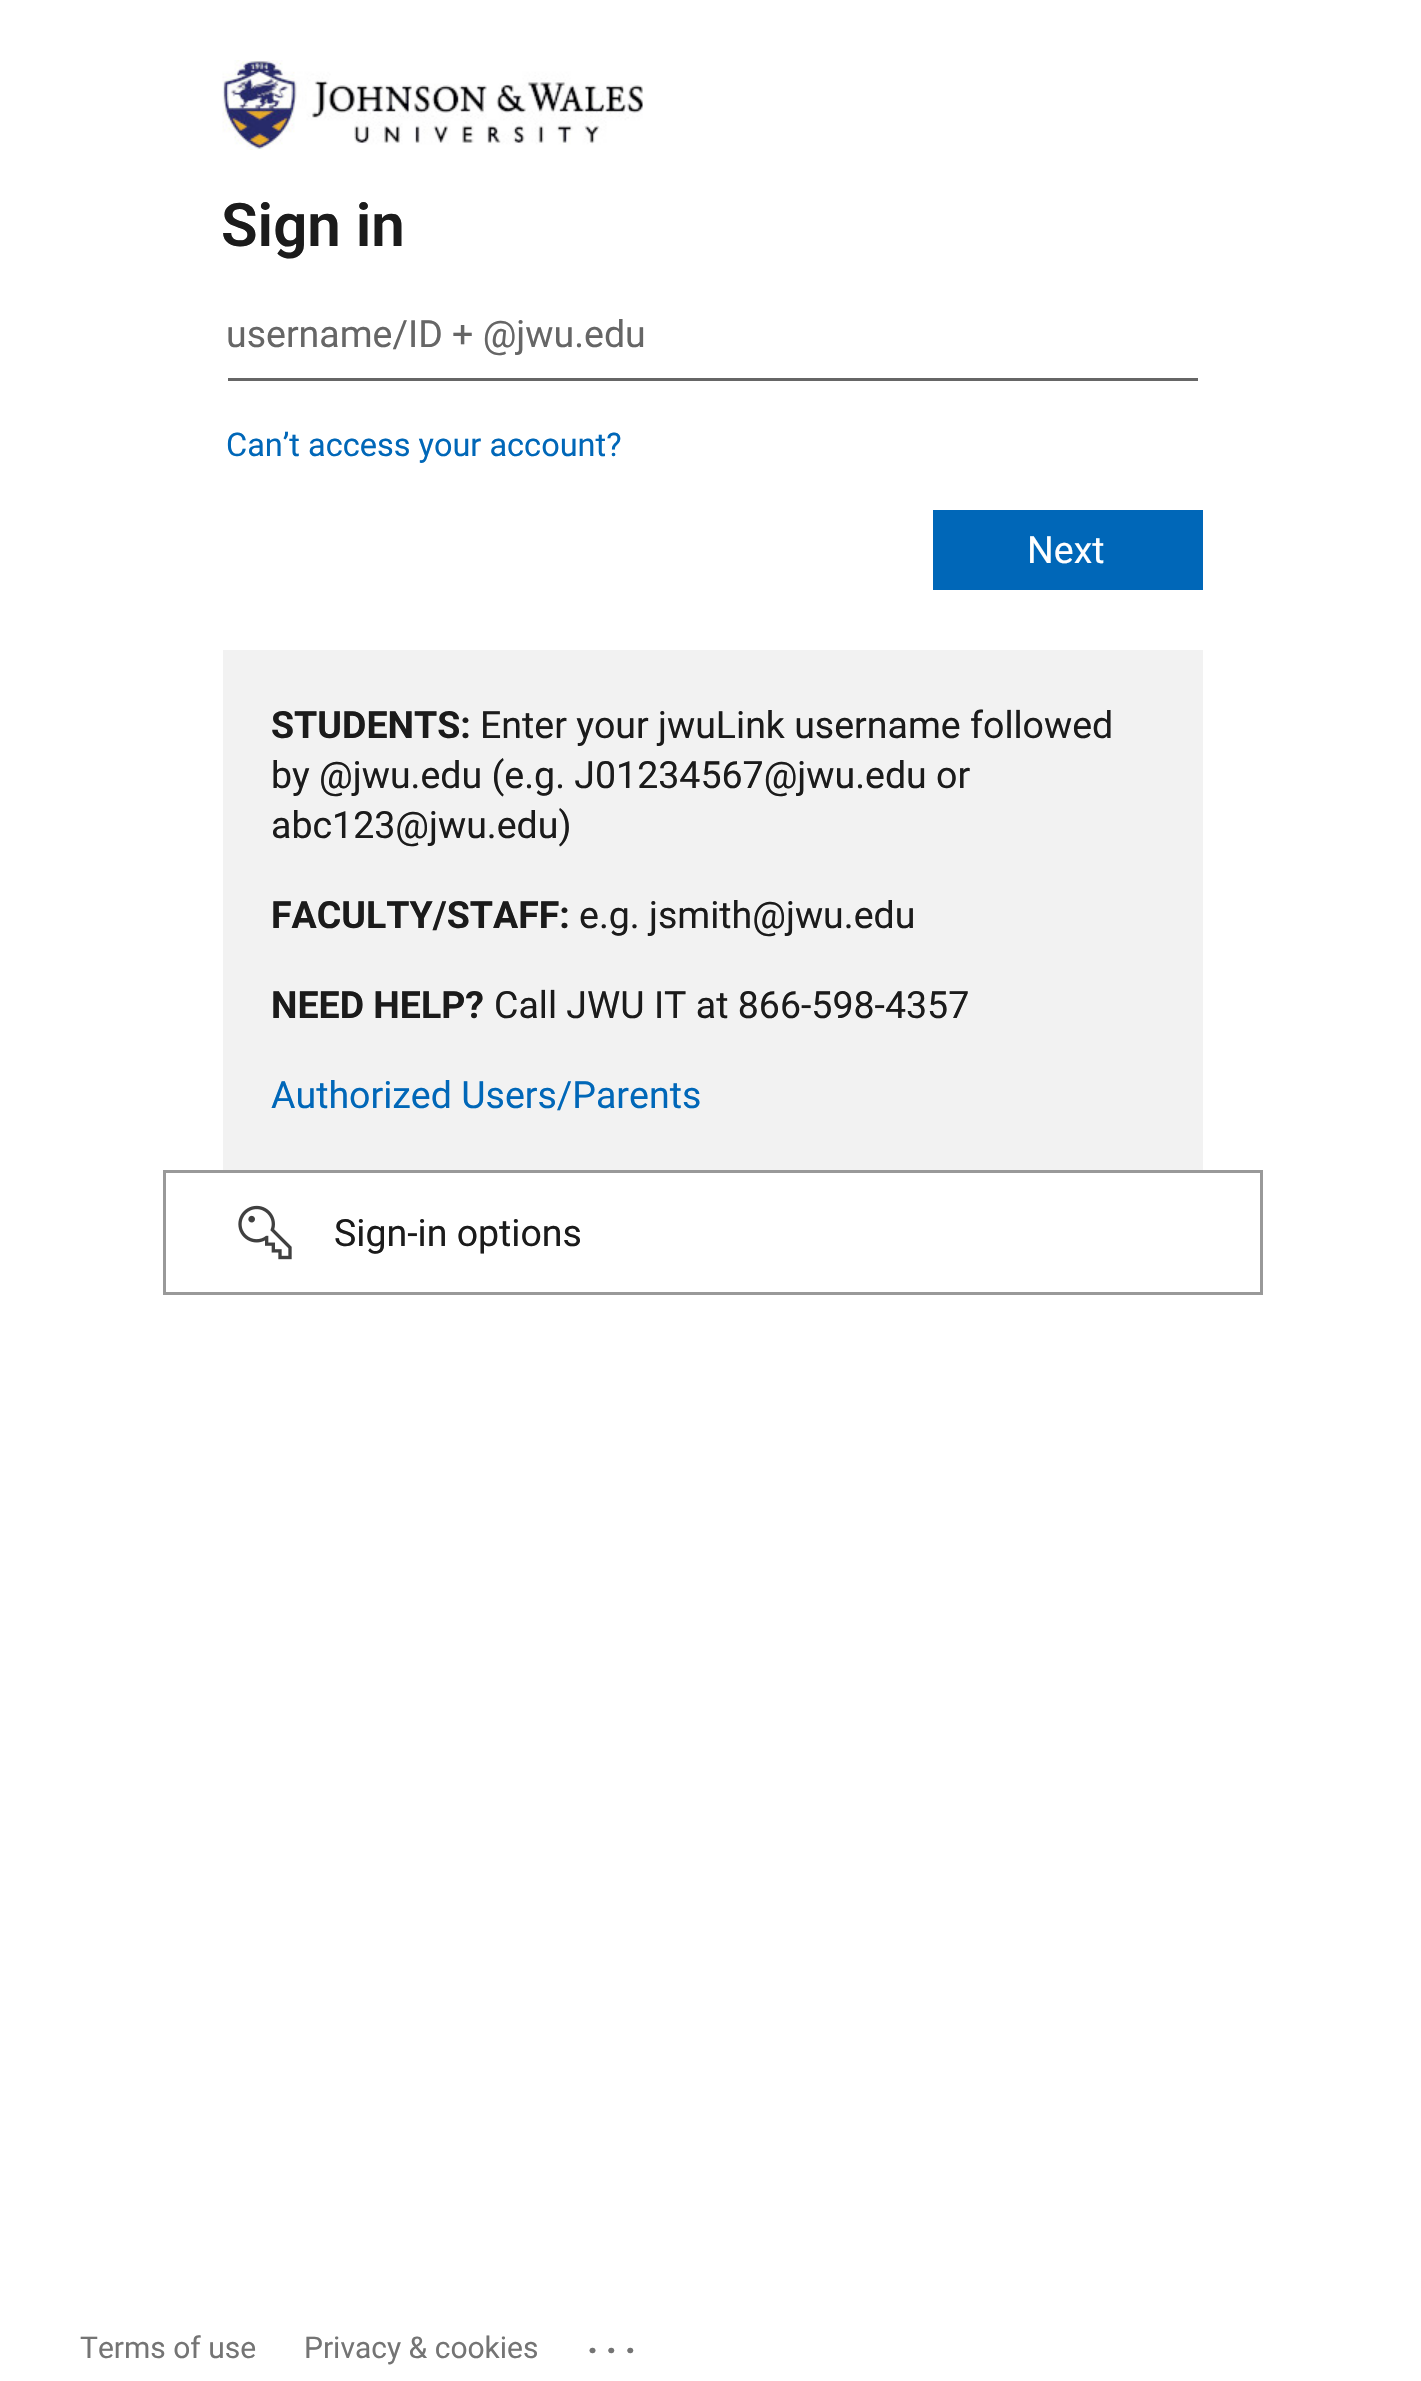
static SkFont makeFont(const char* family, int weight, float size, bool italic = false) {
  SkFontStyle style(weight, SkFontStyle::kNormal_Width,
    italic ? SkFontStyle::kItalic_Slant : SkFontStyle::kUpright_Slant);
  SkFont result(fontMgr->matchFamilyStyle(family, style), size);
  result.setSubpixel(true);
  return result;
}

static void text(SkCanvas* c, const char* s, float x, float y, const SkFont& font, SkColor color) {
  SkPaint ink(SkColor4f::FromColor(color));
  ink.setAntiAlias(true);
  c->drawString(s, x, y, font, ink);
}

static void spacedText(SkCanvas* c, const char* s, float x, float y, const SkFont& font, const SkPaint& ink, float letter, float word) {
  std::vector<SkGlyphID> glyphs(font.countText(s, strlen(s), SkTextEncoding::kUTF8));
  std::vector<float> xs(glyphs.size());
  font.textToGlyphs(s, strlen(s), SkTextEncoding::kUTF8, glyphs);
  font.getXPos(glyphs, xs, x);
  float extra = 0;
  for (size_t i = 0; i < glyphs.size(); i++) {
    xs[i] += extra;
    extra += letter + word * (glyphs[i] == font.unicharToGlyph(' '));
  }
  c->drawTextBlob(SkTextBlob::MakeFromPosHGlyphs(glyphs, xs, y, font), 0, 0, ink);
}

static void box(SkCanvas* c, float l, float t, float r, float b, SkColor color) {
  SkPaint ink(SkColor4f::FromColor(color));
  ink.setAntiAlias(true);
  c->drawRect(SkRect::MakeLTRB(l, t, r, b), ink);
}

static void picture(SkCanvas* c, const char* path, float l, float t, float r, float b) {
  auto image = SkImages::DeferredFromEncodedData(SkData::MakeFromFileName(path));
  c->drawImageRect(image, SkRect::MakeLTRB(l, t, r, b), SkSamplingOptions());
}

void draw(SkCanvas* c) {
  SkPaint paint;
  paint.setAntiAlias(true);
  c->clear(0xffffffff);
  picture(c, "img_01.png", 222, 60, 643, 150);
  SkFont face1 = makeFont("Roboto", 600, 60);
  text(c, "Sign in", 221, 246, face1, 0xff1b1b1b);
  box(c, 228, 378, 1198, 381, 0xff666666);
  SkFont face2 = makeFont("Roboto", 400, 37.5f);
  text(c, "username/ID + @jwu.edu", 226, 347, face2, 0xff666666);
  SkFont face3 = makeFont("Roboto", 400, 32.5f);
  text(c, "Can’t access your account?", 226, 456, face3, 0xff0067b8);
  box(c, 933, 510, 1203, 590, 0xff0067b8);
  text(c, "Next", 1027, 563, face2, 0xffffffff);
  box(c, 223, 650, 1203, 1170, 0xfff2f2f2);
  SkFont face4 = makeFont("Roboto", 700, 37.5f);
  text(c, "STUDENTS:", 271, 738, face4, 0xff1b1b1b);
  text(c, "Enter your jwuLink username followed", 480, 738, face2, 0xff1b1b1b);
  text(c, "by @jwu.edu (e.g. J01234567@jwu.edu or", 271, 788, face2, 0xff1b1b1b);
  text(c, "abc123@jwu.edu)", 271, 838, face2, 0xff1b1b1b);
  text(c, "FACULTY/STAFF:", 271, 928, face4, 0xff1b1b1b);
  text(c, "e.g. jsmith@jwu.edu", 579, 928, face2, 0xff1b1b1b);
  text(c, "NEED HELP?", 271, 1018, face4, 0xff1b1b1b);
  text(c, "Call JWU IT at 866-598-4357", 494, 1018, face2, 0xff1b1b1b);
  text(c, "Authorized Users/Parents", 271, 1108, face2, 0xff0067b8);
  paint.setStyle(SkPaint::kStroke_Style);
  paint.setStrokeWidth(3);
  paint.setColor(0xff999999);
  c->drawRect(SkRect::MakeLTRB(164.5f, 1171.5f, 1261.5f, 1293.5f), paint);
  picture(c, "img_02.png", 238, 1205, 292, 1260);
  text(c, "Sign-in options", 334, 1246, face2, 0xff1b1b1b);
  SkFont face5 = makeFont("Roboto", 400, 30);
  text(c, "Terms of use", 80, 2358, face5, 0xff747474);
  text(c, "Privacy & cookies", 304, 2358, face5, 0xff747474);
  SkFont face6 = makeFont("Roboto", 600, 40);
  paint.setStyle(SkPaint::kFill_Style);
  paint.setColor(0xff747474);
  spacedText(c, "...", 587, 2353, face6, paint, 7.5f, 0);
}
